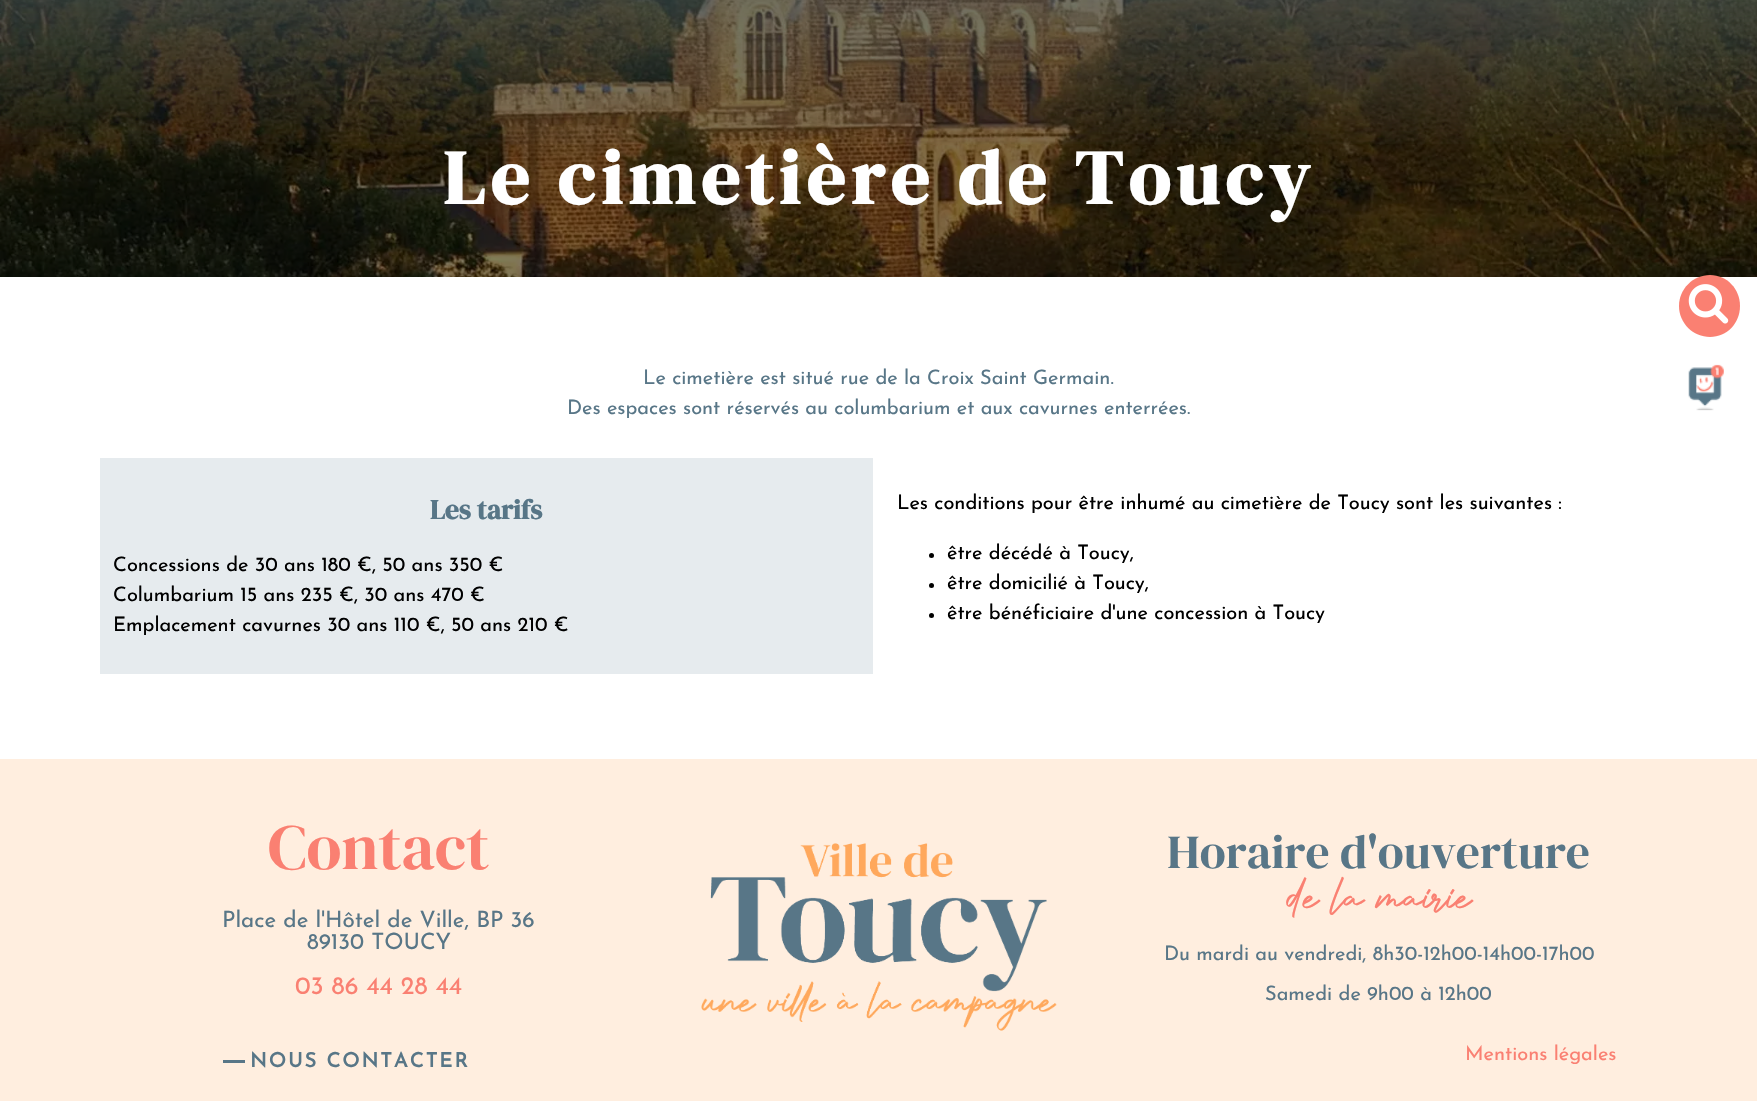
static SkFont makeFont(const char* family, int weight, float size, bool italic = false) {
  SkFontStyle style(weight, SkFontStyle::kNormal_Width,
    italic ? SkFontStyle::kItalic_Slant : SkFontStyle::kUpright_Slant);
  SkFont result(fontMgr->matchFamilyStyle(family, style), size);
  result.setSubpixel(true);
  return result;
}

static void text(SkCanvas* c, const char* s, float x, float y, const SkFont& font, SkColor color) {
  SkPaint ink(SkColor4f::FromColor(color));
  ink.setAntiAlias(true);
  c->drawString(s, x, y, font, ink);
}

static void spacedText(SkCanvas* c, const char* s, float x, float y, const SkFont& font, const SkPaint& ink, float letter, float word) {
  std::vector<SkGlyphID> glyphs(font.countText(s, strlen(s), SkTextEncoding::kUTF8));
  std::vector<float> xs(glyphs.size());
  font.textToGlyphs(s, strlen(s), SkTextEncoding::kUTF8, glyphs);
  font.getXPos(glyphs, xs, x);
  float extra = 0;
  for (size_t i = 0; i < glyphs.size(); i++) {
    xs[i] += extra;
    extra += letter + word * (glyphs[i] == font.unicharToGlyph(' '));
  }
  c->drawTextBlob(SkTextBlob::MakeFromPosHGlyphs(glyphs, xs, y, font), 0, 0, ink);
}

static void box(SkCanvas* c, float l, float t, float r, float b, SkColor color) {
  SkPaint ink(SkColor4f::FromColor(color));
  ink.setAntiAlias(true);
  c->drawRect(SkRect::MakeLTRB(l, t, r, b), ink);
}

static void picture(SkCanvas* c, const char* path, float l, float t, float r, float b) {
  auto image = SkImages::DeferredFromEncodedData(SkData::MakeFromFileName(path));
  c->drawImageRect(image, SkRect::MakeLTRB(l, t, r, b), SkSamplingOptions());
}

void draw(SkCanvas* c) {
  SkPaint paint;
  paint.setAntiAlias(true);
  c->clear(0xffffffff);
  picture(c, "img_01.png", 0, 0, 1757, 277);
  {
    const SkColor colors[] = {0xff587687, 0x00587687};
    const float stops[] = {0, 0.56f};
    const SkPoint ends[] = {{879, -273}, {879, 488}};
    paint.setShader(SkGradientShader::MakeLinear(ends, colors, stops, 2, SkTileMode::kClamp));
    paint.setAlpha(255);
  }
  c->drawRect(SkRect::MakeLTRB(0, 0, 1757, 144), paint);
  SkFont face1 = makeFont("DM Serif Display", 700, 76.4f);
  paint.setShader(nullptr);
  paint.setColor(0xffffffff);
  spacedText(c, "Le cimetière de Toucy", 443, 204, face1, paint, 5.9f, 0);
  SkFont face2 = makeFont("Josefin Sans", 100, 20);
  text(c, "Le cimetière est situé rue de la Croix Saint Germain.", 643, 384, face2, 0xff587687);
  text(c, "Des espaces sont réservés au columbarium et aux cavurnes enterrées.", 567, 414, face2, 0xff587687);
  box(c, 100, 458, 873, 674, 0xffe6ebee);
  SkFont face3 = makeFont("DM Serif Display", 700, 27.5f);
  text(c, "Les tarifs", 430, 519, face3, 0xff587687);
  text(c, "Concessions de 30 ans 180 €, 50 ans 350 €", 113, 571, face2, 0xff000000);
  text(c, "Columbarium 15 ans 235 €, 30 ans 470 €", 113, 601, face2, 0xff000000);
  text(c, "Emplacement cavurnes 30 ans 110 €, 50 ans 210 €", 113, 631, face2, 0xff000000);
  text(c, "Les conditions pour être inhumé au cimetière de Toucy sont les suivantes :", 897, 509, face2, 0xff000000);
  paint.setColor(0xff000000);
  c->drawCircle(931.5f, 555.5f, 2.5f, paint);
  text(c, "être décédé à Toucy,", 947, 559, face2, 0xff000000);
  c->drawCircle(931.5f, 585.5f, 2.5f, paint);
  text(c, "être domicilié à Toucy,", 947, 589, face2, 0xff000000);
  c->drawCircle(931.5f, 615.5f, 2.5f, paint);
  text(c, "être bénéficiaire d'une concession à Toucy", 947, 619, face2, 0xff000000);
  paint.setColor(0xfffa8072);
  c->drawPath(SkPathBuilder().moveTo(1710, 275).cubicTo(1693, 275, 1679, 289, 1679, 306).cubicTo(1679, 323, 1693, 337, 1710, 337).cubicTo(1727, 337, 1740, 323, 1740, 306).cubicTo(1740, 289, 1727, 275, 1710, 275).close().detach(), paint);
  picture(c, "img_02.png", 1688, 284, 1729, 324);
  picture(c, "img_03.png", 1688, 364, 1724, 411);
  box(c, 0, 759, 1757, 1101, 0xffffeedf);
  SkFont face4 = makeFont("DM Serif Display", 400, 64);
  text(c, "Contact", 268, 869, face4, 0xfffa8072);
  SkFont face5 = makeFont("Josefin Sans", 100, 22.5f);
  text(c, "Place de l'Hôtel de Ville, BP 36", 222, 927, face5, 0xff587687);
  text(c, "89130 TOUCY", 307, 949, face5, 0xff587687);
  SkFont face6 = makeFont("Josefin Sans", 100, 25);
  text(c, "03 86 44 28 44", 295, 994, face6, 0xfffa8072);
  box(c, 223, 1060, 245, 1063, 0xff587687);
  SkFont face7 = makeFont("Josefin Sans", 700, 20);
  paint.setColor(0xff587687);
  spacedText(c, "NOUS CONTACTER", 250, 1067, face7, paint, 2, 0);
  picture(c, "img_04.png", 701, 843, 1057, 1031);
  SkFont face8 = makeFont("DM Serif Display", 400, 47.5f);
  text(c, "Horaire d'ouverture", 1167, 868, face8, 0xff587687);
  SkFont face9 = makeFont("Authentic", 400, 57.5f);
  text(c, "de la mairie", 1286, 916, face9, 0xfffa8072);
  text(c, "Du mardi au vendredi, 8h30-12h00-14h00-17h00", 1164, 960, face2, 0xff587687);
  text(c, "Samedi de 9h00 à 12h00", 1265, 1000, face2, 0xff587687);
  text(c, "Mentions légales", 1465, 1060, face2, 0xfffa8072);
}
